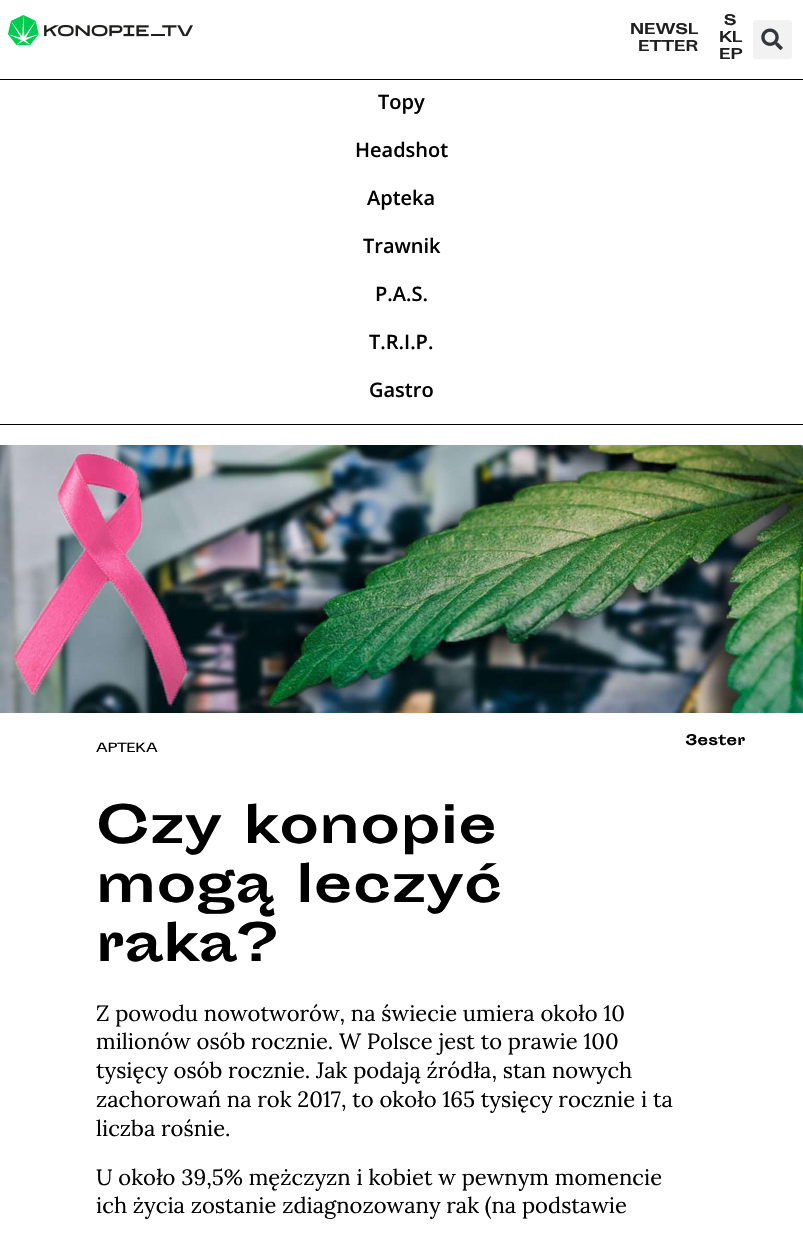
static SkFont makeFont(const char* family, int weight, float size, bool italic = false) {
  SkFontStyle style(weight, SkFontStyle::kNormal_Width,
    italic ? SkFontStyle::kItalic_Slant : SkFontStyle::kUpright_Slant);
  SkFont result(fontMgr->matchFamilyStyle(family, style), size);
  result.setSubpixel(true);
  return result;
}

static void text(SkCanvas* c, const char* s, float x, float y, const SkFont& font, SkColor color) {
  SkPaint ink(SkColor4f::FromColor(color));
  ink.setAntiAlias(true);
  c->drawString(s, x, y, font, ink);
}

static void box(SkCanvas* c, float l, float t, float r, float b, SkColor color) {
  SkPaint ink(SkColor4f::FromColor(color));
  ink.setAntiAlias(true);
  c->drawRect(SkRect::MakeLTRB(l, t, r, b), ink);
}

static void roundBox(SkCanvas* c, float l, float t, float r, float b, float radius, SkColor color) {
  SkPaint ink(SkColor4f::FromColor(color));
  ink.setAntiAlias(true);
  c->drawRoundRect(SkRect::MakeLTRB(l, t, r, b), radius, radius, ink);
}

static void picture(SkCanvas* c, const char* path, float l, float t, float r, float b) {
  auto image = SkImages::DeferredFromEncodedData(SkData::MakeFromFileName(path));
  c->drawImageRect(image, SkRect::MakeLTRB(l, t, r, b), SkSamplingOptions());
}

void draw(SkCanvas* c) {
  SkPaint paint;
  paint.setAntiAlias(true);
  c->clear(0xffffffff);
  picture(c, "img_01.png", 7, 15, 193, 45);
  SkFont face1 = makeFont("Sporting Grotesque", 700, 14);
  text(c, "NEWSL", 630, 34, face1, 0xff202020);
  text(c, "ETTER", 638, 51, face1, 0xff202020);
  text(c, "S", 724, 25, face1, 0xff202020);
  text(c, "KL", 719, 42, face1, 0xff202020);
  text(c, "EP", 719, 59, face1, 0xff202020);
  roundBox(c, 753, 20, 792, 59, 3, 0xfff2f2f2);
  picture(c, "img_02.png", 761, 28, 783, 50);
  box(c, 0, 79, 803, 80, 0xff000000);
  box(c, 0, 424, 803, 425, 0xff000000);
  SkFont face2 = makeFont("Open Sans", 600, 20);
  text(c, "Topy", 378, 109, face2, 0xff000000);
  text(c, "Headshot", 355, 157, face2, 0xff000000);
  text(c, "Apteka", 367, 205, face2, 0xff000000);
  text(c, "Trawnik", 363, 253, face2, 0xff000000);
  text(c, "P.A.S.", 375, 301, face2, 0xff000000);
  text(c, "T.R.I.P.", 369, 349, face2, 0xff000000);
  text(c, "Gastro", 369, 397, face2, 0xff000000);
  picture(c, "img_03.png", 0, 445, 803, 713);
  text(c, "3ester", 685, 745, face1, 0xff000000);
  SkFont face3 = makeFont("Sporting Grotesque", 400, 12);
  text(c, "APTEKA", 96, 752, face3, 0xff000000);
  SkFont face4 = makeFont("Sporting Grotesque", 700, 50);
  text(c, "Czy konopie", 96, 843, face4, 0xff000000);
  text(c, "mogą leczyć", 96, 902, face4, 0xff000000);
  text(c, "raka?", 96, 961, face4, 0xff000000);
  SkFont face5 = makeFont("Lora", 400, 22);
  text(c, "Z powodu nowotworów, na świecie umiera około 10", 96, 1021, face5, 0xff000000);
  text(c, "milionów osób rocznie. W Polsce jest to prawie 100", 96, 1049, face5, 0xff000000);
  text(c, "tysięcy osób rocznie. Jak podają źródła, stan nowych", 96, 1078, face5, 0xff000000);
  text(c, "zachorowań na rok 2017, to około 165 tysięcy rocznie i ta", 96, 1107, face5, 0xff000000);
  text(c, "liczba rośnie.", 96, 1136, face5, 0xff000000);
  text(c, "U około 39,5% mężczyzn i kobiet w pewnym momencie", 96, 1185, face5, 0xff000000);
  text(c, "ich życia zostanie zdiagnozowany rak (na podstawie", 96, 1213, face5, 0xff000000);
}
